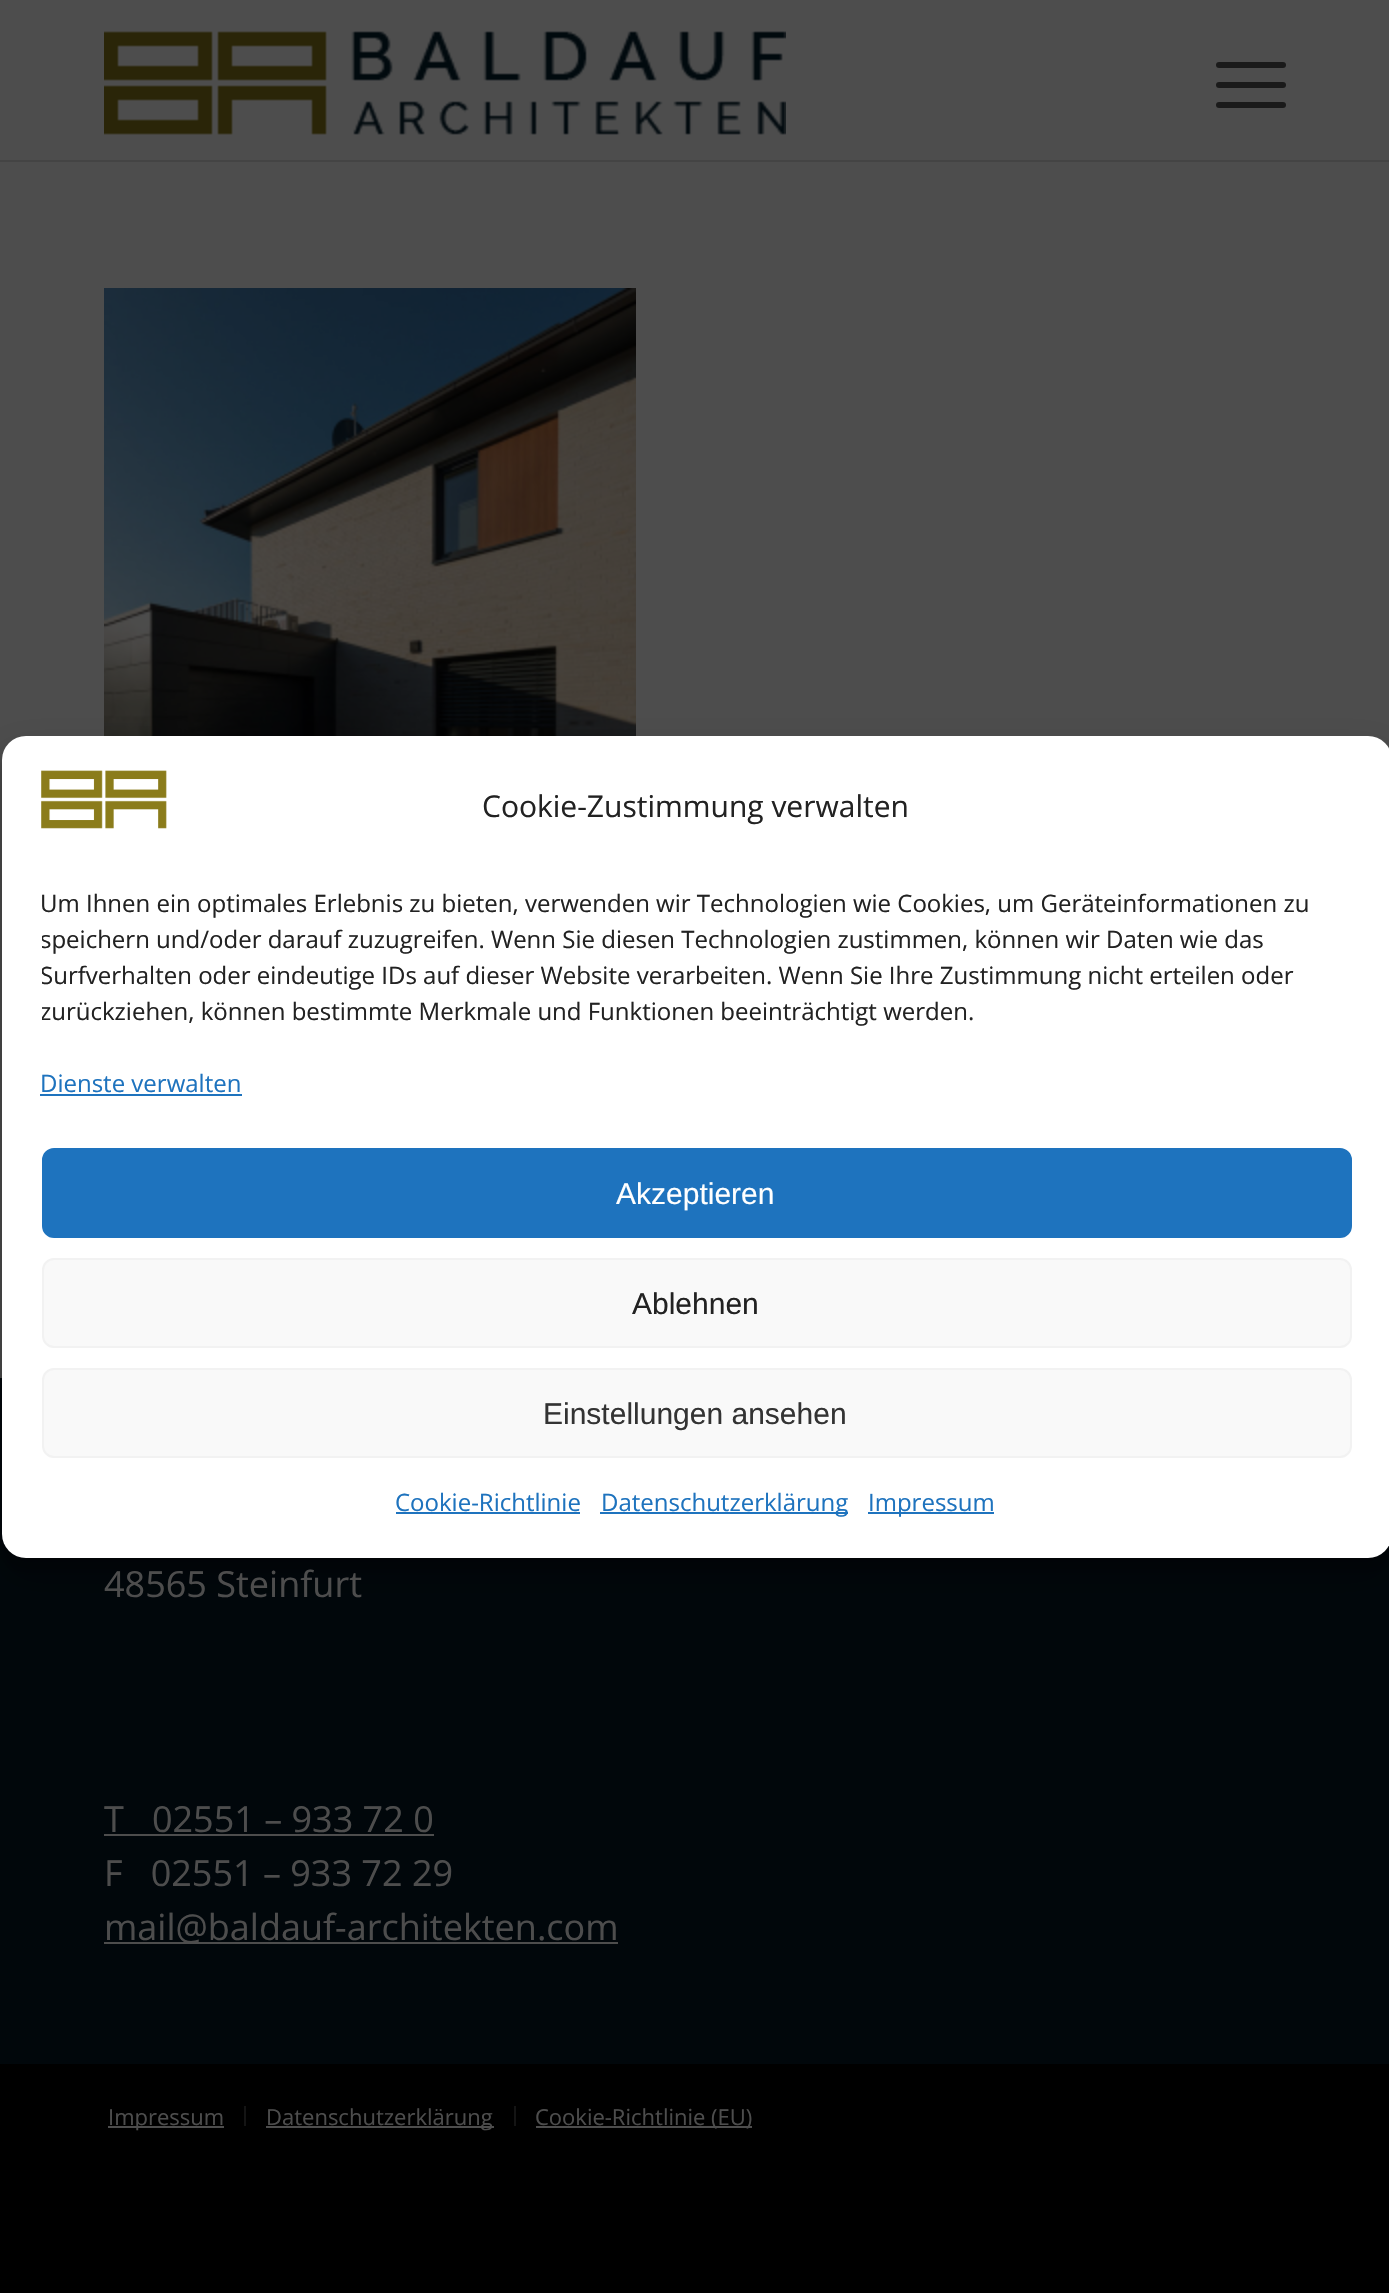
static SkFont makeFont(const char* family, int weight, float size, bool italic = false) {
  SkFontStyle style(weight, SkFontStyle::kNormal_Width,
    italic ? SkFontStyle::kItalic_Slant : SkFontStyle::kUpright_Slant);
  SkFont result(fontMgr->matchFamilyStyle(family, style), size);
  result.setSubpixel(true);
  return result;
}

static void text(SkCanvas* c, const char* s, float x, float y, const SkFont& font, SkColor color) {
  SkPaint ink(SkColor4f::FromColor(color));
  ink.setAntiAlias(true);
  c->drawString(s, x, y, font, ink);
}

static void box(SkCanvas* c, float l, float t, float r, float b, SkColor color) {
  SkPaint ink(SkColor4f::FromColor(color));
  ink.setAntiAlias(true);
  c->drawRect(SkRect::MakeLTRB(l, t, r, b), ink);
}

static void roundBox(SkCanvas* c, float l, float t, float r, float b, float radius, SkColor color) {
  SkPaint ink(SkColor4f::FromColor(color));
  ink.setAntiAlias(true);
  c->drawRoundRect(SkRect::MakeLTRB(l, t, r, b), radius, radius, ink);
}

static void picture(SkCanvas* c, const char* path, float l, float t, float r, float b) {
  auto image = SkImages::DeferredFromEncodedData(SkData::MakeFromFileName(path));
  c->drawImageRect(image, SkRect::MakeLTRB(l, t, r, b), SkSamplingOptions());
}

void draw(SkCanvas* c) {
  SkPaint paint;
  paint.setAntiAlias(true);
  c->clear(0xff000000);
  box(c, 0, 0, 1389, 1378, 0xff4d4d4d);
  picture(c, "img_03.png", 104, 288, 636, 736);
  box(c, 0, 1378, 1389, 2064, 0xff01070b);
  paint.setColor(0x3b000000);
  paint.setMaskFilter(SkMaskFilter::MakeBlur(kNormal_SkBlurStyle, 6));
  c->drawRoundRect(SkRect::MakeLTRB(2, 748, 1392, 1570), 24, 24, paint);
  paint.setMaskFilter(nullptr);
  paint.setColor(0x30000000);
  paint.setMaskFilter(SkMaskFilter::MakeBlur(kNormal_SkBlurStyle, 20));
  c->drawRoundRect(SkRect::MakeLTRB(2, 756, 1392, 1578), 24, 24, paint);
  paint.setMaskFilter(nullptr);
  roundBox(c, 2, 736, 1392, 1558, 24, 0xffffffff);
  picture(c, "img_01.png", 41, 770, 167, 829);
  SkFont face1 = makeFont("Open Sans", 400, 30);
  text(c, "Cookie-Zustimmung verwalten", 482, 817, face1, 0xff222222);
  SkFont face2 = makeFont("Open Sans", 400, 24);
  text(c, "Um Ihnen ein optimales Erlebnis zu bieten, verwenden wir Technologien wie Cookies, um Geräteinformationen zu", 40, 912, face2, 0xff222222);
  c->save();
  c->clipRect(SkRect::MakeLTRB(42, 886, 1352, 1040));
  text(c, "speichern und/oder darauf zuzugreifen. Wenn Sie diesen Technologien zustimmen, können wir Daten wie das", 40, 948, face2, 0xff222222);
  text(c, "Surfverhalten oder eindeutige IDs auf dieser Website verarbeiten. Wenn Sie Ihre Zustimmung nicht erteilen oder", 40, 984, face2, 0xff222222);
  text(c, "zurückziehen, können bestimmte Merkmale und Funktionen beeinträchtigt werden.", 40, 1020, face2, 0xff222222);
  c->restore();
  text(c, "Dienste verwalten", 40, 1092, face2, 0xff1e73be);
  box(c, 40, 1094, 242, 1096, 0xff1e73be);
  paint.setColor(0xff1e73be);
  c->drawRoundRect(SkRect::MakeLTRB(43, 1149, 1351, 1237), 11, 11, paint);
  paint.setStyle(SkPaint::kStroke_Style);
  paint.setStrokeWidth(2);
  c->drawRoundRect(SkRect::MakeLTRB(43, 1149, 1351, 1237), 11, 11, paint);
  SkFont face3 = makeFont("Liberation Sans", 400, 30);
  text(c, "Akzeptieren", 616, 1204, face3, 0xffffffff);
  paint.setStyle(SkPaint::kFill_Style);
  paint.setColor(0xfff9f9f9);
  c->drawRoundRect(SkRect::MakeLTRB(43, 1259, 1351, 1347), 11, 11, paint);
  paint.setStyle(SkPaint::kStroke_Style);
  paint.setColor(0xfff2f2f2);
  c->drawRoundRect(SkRect::MakeLTRB(43, 1259, 1351, 1347), 11, 11, paint);
  text(c, "Ablehnen", 632, 1314, face3, 0xff222222);
  paint.setStyle(SkPaint::kFill_Style);
  paint.setColor(0xfff9f9f9);
  c->drawRoundRect(SkRect::MakeLTRB(43, 1369, 1351, 1457), 11, 11, paint);
  paint.setStyle(SkPaint::kStroke_Style);
  paint.setColor(0xfff2f2f2);
  c->drawRoundRect(SkRect::MakeLTRB(43, 1369, 1351, 1457), 11, 11, paint);
  text(c, "Einstellungen ansehen", 543, 1424, face3, 0xff333333);
  text(c, "Cookie-Richtlinie", 395, 1511, face2, 0xff1e73be);
  box(c, 396, 1512, 580, 1514, 0xff1e73be);
  box(c, 600, 1512, 848, 1514, 0xff1e73be);
  text(c, "Datenschutzerklärung", 601, 1511, face2, 0xff1e73be);
  box(c, 868, 1512, 994, 1514, 0xff1e73be);
  text(c, "Impressum", 868, 1511, face2, 0xff1e73be);
  box(c, 0, 160, 1389, 162, 0xff444444);
  picture(c, "img_02.png", 104, 31, 786, 135);
  roundBox(c, 1216, 82, 1286, 88, 3, 0xff1a1a1a);
  roundBox(c, 1216, 62, 1286, 68, 3, 0xff1a1a1a);
  roundBox(c, 1216, 102, 1286, 108, 3, 0xff1a1a1a);
  SkFont face4 = makeFont("Open Sans", 400, 36);
  text(c, "48565 Steinfurt", 104, 1597, face4, 0xff4d4d4d);
  text(c, "T   02551 – 933 72 0", 104, 1832, face4, 0xff4d4d4d);
  box(c, 104, 1834, 434, 1836, 0xff4d4d4d);
  text(c, "F   02551 – 933 72 29", 104, 1886, face4, 0xff4d4d4d);
  box(c, 104, 1942, 618, 1944, 0xff4d4d4d);
  text(c, "mail@baldauf-architekten.com", 104, 1940, face4, 0xff4d4d4d);
  box(c, 108, 2126, 224, 2128, 0xff4d4d4d);
  SkFont face5 = makeFont("Open Sans", 400, 22);
  text(c, "Impressum", 108, 2125, face5, 0xff4d4d4d);
  box(c, 244, 2106, 246, 2126, 0xff141414);
  box(c, 266, 2126, 494, 2128, 0xff4d4d4d);
  text(c, "Datenschutzerklärung", 266, 2125, face5, 0xff4d4d4d);
  box(c, 514, 2106, 516, 2126, 0xff141414);
  box(c, 536, 2126, 752, 2128, 0xff4d4d4d);
  text(c, "Cookie-Richtlinie (EU)", 535, 2125, face5, 0xff4d4d4d);
}
